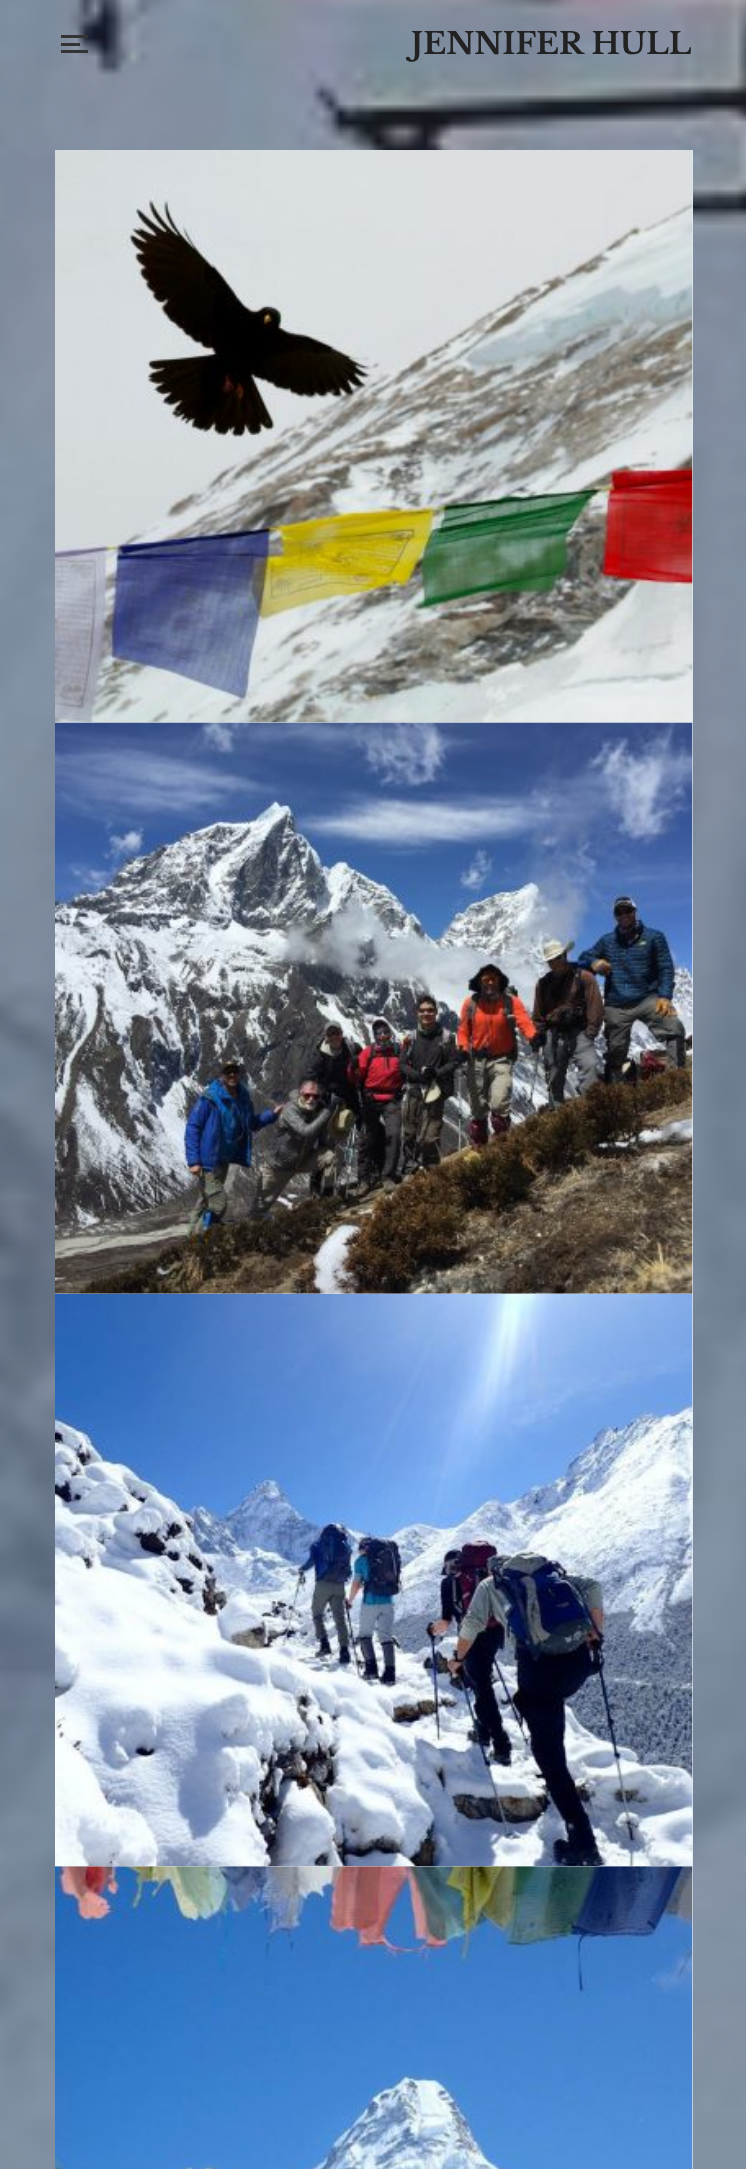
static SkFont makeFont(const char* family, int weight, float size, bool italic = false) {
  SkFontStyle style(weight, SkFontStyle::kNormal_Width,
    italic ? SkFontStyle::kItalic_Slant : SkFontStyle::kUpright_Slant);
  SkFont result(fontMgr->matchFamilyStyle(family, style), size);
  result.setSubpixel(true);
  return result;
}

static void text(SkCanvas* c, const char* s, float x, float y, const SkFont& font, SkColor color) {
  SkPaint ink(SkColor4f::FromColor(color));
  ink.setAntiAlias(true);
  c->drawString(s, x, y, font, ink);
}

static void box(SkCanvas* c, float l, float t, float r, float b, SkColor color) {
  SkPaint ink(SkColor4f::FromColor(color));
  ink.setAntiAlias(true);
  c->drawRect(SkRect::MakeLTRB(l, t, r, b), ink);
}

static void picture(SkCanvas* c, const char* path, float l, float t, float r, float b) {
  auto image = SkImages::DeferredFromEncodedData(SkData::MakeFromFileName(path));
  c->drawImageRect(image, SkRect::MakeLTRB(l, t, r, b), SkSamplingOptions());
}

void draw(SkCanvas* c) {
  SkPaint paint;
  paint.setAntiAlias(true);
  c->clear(0xffffffff);
  picture(c, "img_01.png", 0, 0, 746, 2169);
  box(c, 55, 150, 693, 1294, 0xffe0e8ee);
  picture(c, "img_02.png", 55, 150, 693, 723);
  picture(c, "img_03.png", 55, 722, 693, 1294);
  box(c, 692, 1294, 693, 1866, 0xffe0e8ee);
  picture(c, "img_04.png", 55, 1293, 693, 1866);
  box(c, 55, 1866, 693, 2169, 0xffe0e8ee);
  picture(c, "img_05.png", 55, 1866, 693, 2169);
  box(c, 61, 43, 80, 46, 0xff333333);
  box(c, 61, 35, 88, 38, 0xff333333);
  box(c, 61, 50, 88, 53, 0xff333333);
  SkFont face1 = makeFont("Libre Baskerville", 700, 30);
  text(c, "JENNIFER HULL", 411, 54, face1, 0xff222222);
}
